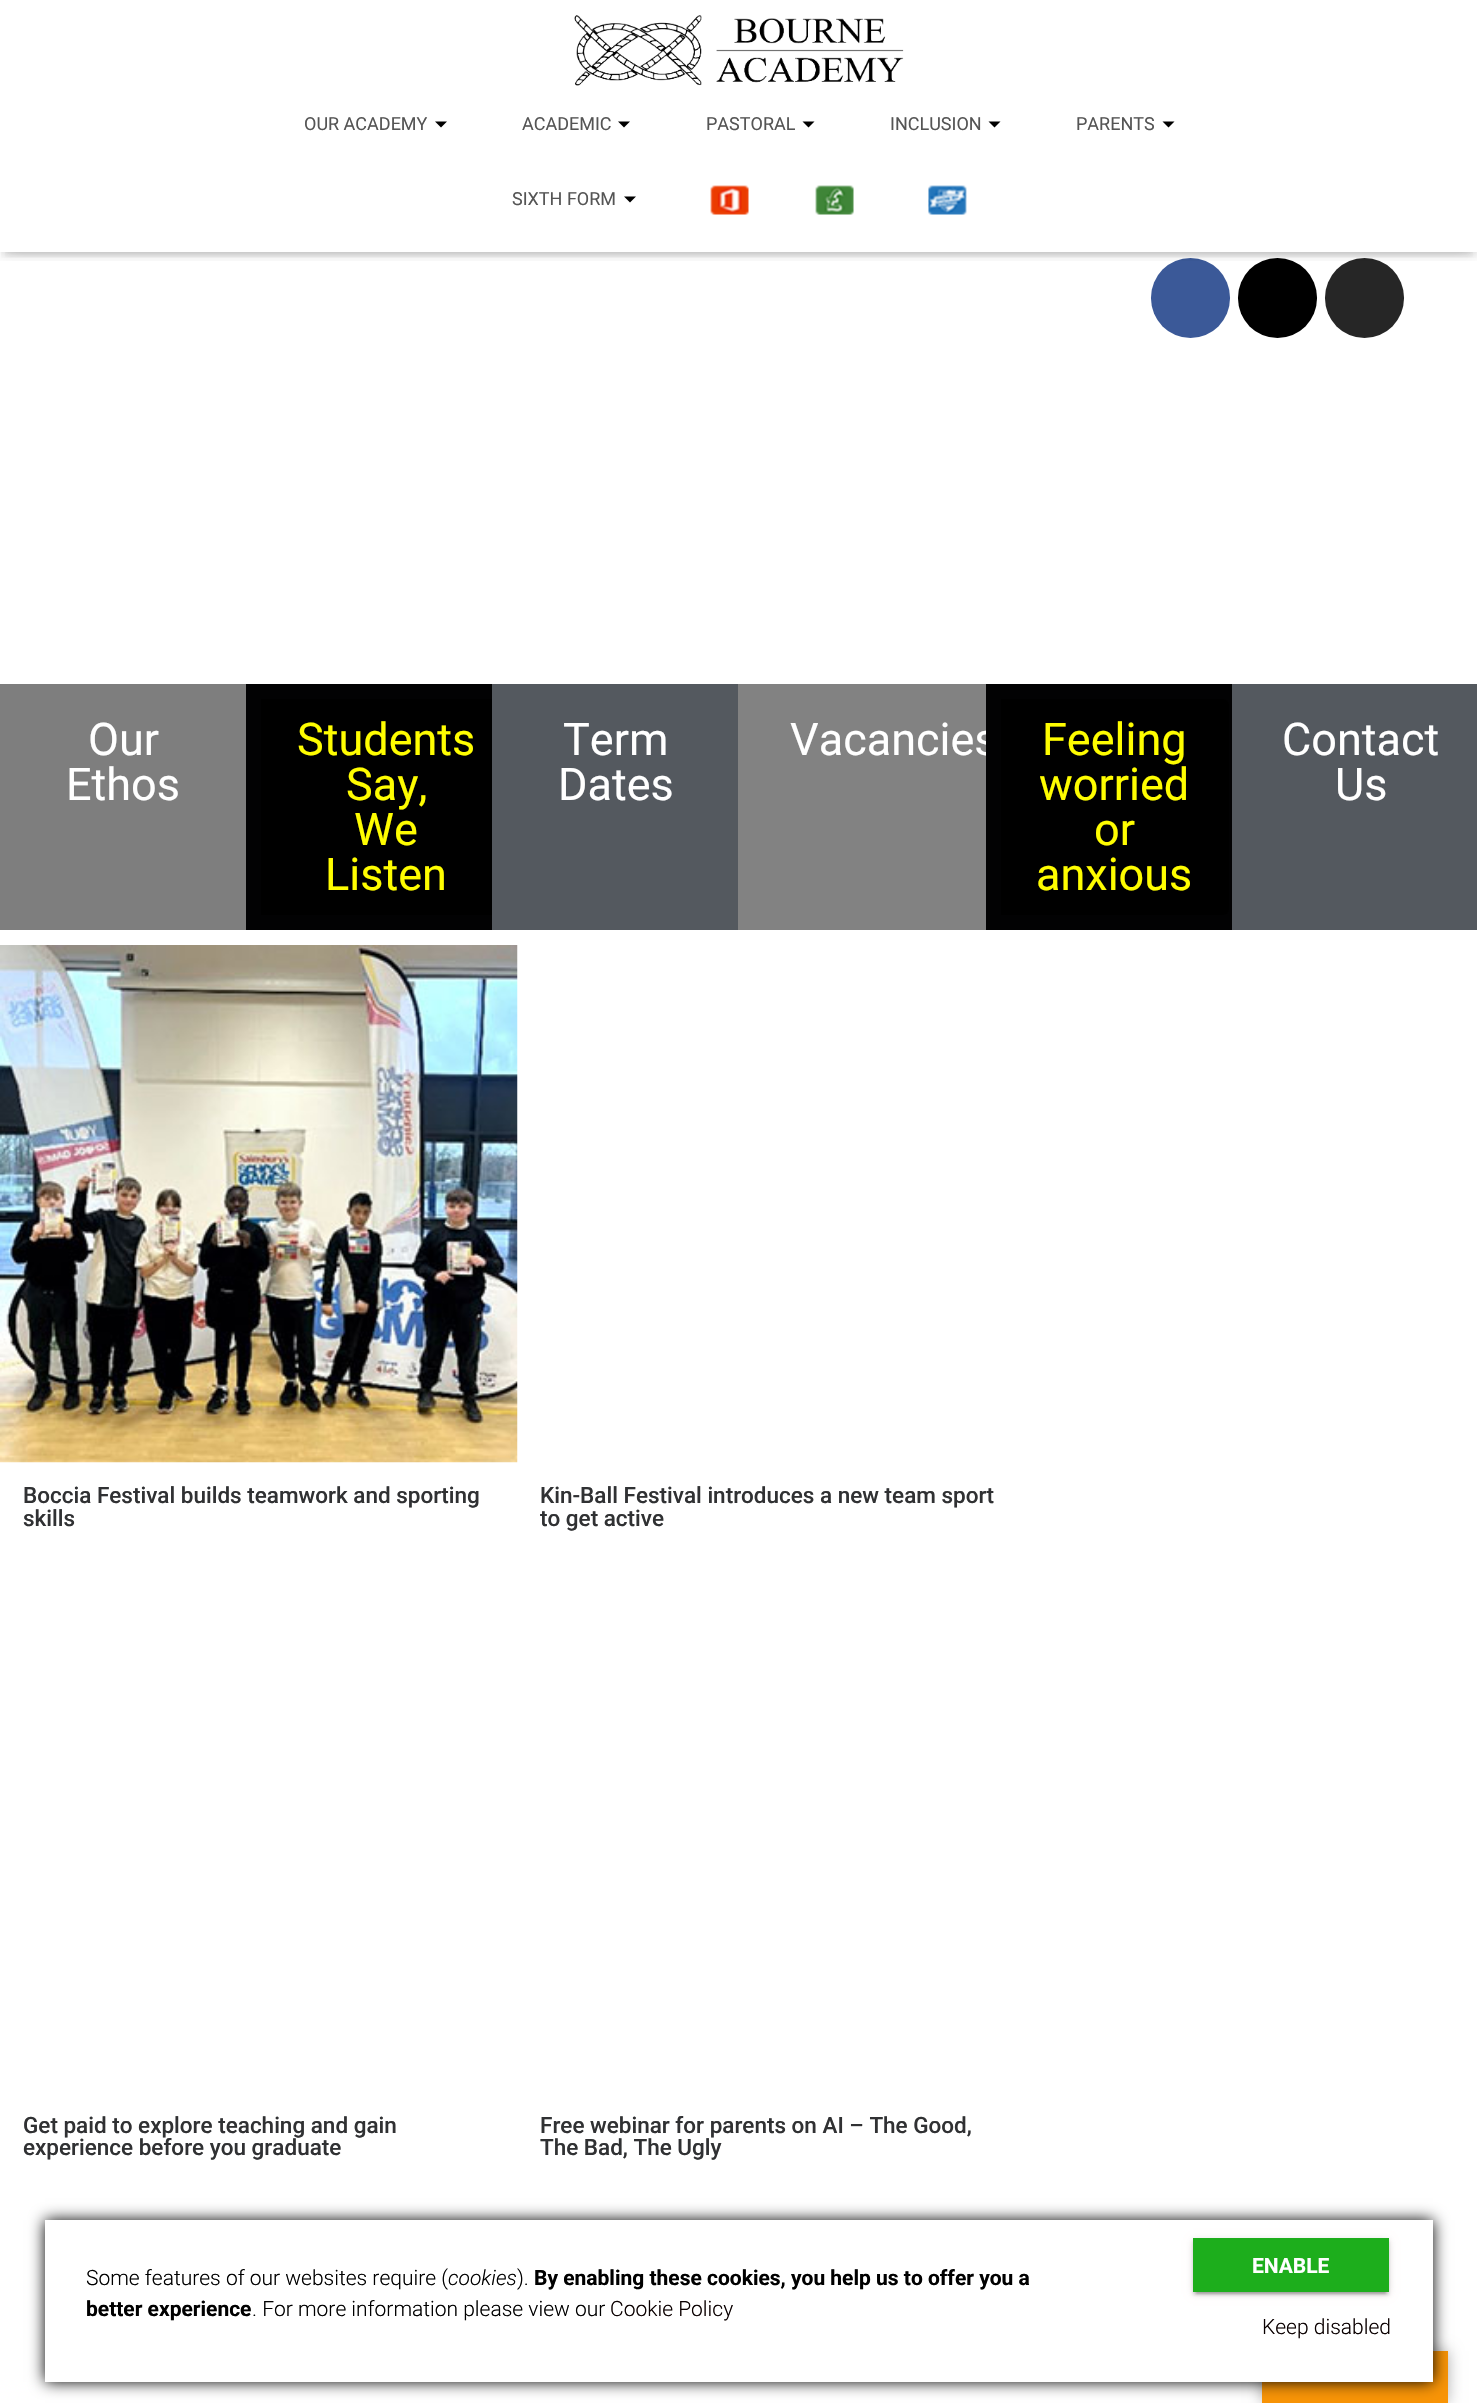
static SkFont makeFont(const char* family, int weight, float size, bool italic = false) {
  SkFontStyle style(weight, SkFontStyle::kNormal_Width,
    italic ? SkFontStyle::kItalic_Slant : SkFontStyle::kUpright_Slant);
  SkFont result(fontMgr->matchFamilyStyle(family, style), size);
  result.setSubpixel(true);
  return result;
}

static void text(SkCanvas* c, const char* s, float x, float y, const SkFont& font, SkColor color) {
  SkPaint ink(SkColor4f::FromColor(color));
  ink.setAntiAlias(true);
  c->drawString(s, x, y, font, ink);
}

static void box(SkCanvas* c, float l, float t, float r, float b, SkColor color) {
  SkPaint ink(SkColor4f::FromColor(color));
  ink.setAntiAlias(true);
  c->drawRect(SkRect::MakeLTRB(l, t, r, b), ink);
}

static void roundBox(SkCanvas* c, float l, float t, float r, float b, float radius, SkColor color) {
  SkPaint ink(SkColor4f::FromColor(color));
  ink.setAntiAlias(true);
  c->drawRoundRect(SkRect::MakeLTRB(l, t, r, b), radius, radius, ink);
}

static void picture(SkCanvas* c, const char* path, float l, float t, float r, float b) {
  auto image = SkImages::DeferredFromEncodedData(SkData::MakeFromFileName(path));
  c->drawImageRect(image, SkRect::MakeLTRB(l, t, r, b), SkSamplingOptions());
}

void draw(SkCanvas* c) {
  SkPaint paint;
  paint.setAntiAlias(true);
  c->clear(0xffffffff);
  roundBox(c, 1151, 258, 1230, 338, 39.5f, 0xff3b5998);
  roundBox(c, 1238, 258, 1317, 338, 39.5f, 0xff000000);
  roundBox(c, 1325, 258, 1404, 338, 39.5f, 0xff262626);
  c->save();
  c->clipRect(SkRect::MakeLTRB(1, 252, 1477, 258));
  paint.setColor(0x1a000000);
  paint.setMaskFilter(SkMaskFilter::MakeBlur(kNormal_SkBlurStyle, 4));
  c->drawRect(SkRect::MakeLTRB(3, 9, 1475, 255), paint);
  paint.setMaskFilter(nullptr);
  c->restore();
  c->save();
  c->clipRect(SkRect::MakeLTRB(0, 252, 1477, 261));
  paint.setColor(0x1f000000);
  paint.setMaskFilter(SkMaskFilter::MakeBlur(kNormal_SkBlurStyle, 7.5f));
  c->drawRect(SkRect::MakeLTRB(0, 2, 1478, 254), paint);
  paint.setMaskFilter(nullptr);
  c->restore();
  c->save();
  c->clipRect(SkRect::MakeLTRB(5, 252, 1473, 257));
  paint.setColor(0x6b000000);
  paint.setMaskFilter(SkMaskFilter::MakeBlur(kNormal_SkBlurStyle, 7.5f));
  c->drawRect(SkRect::MakeLTRB(9, 11, 1469, 245), paint);
  paint.setMaskFilter(nullptr);
  c->restore();
  picture(c, "img_01.png", 574, 15, 904, 86);
  SkFont face1 = makeFont("Roboto", 400, 18);
  text(c, "OUR ACADEMY", 304, 130, face1, 0xff555555);
  paint.setColor(0xff000000);
  c->drawPath(SkPathBuilder().moveTo(435, 121.5f).lineTo(447, 121.5f).lineTo(441, 127.5f).close().detach(), paint);
  text(c, "ACADEMIC", 522, 130, face1, 0xff555555);
  c->drawPath(SkPathBuilder().moveTo(618, 121.5f).lineTo(630, 121.5f).lineTo(624, 127.5f).close().detach(), paint);
  text(c, "PASTORAL", 706, 130, face1, 0xff555555);
  c->drawPath(SkPathBuilder().moveTo(802.5f, 121.5f).lineTo(814.5f, 121.5f).lineTo(808.5f, 127.5f).close().detach(), paint);
  text(c, "INCLUSION", 890, 130, face1, 0xff555555);
  c->drawPath(SkPathBuilder().moveTo(988.5f, 121.5f).lineTo(1000.5f, 121.5f).lineTo(994.5f, 127.5f).close().detach(), paint);
  text(c, "PARENTS", 1076, 130, face1, 0xff555555);
  c->drawPath(SkPathBuilder().moveTo(1162.5f, 121.5f).lineTo(1174.5f, 121.5f).lineTo(1168.5f, 127.5f).close().detach(), paint);
  text(c, "SIXTH FORM", 512, 205, face1, 0xff555555);
  c->drawPath(SkPathBuilder().moveTo(624, 196.5f).lineTo(636, 196.5f).lineTo(630, 202.5f).close().detach(), paint);
  picture(c, "img_02.png", 710, 185, 749, 215);
  picture(c, "img_03.png", 815, 185, 854, 215);
  picture(c, "img_04.png", 928, 185, 967, 215);
  box(c, 0, 684, 246, 930, 0xff7e7e7e);
  SkFont face2 = makeFont("Roboto", 400, 45);
  text(c, "Our", 88, 755, face2, 0xffffffff);
  text(c, "Ethos", 66, 800, face2, 0xffffffff);
  box(c, 246, 684, 492, 930, 0xff020203);
  box(c, 261, 699, 266, 915, 0xff000000);
  roundBox(c, 261, 699, 512, 915, 5, 0xff000000);
  text(c, "Students", 297, 755, face2, 0xfffffd00);
  text(c, "Say,", 346, 800, face2, 0xfffffd00);
  text(c, "We", 354, 845, face2, 0xfffffd00);
  text(c, "Listen", 325, 890, face2, 0xfffffd00);
  box(c, 492, 684, 738, 930, 0xff54595f);
  text(c, "Term", 563, 755, face2, 0xffffffff);
  text(c, "Dates", 558, 800, face2, 0xffffffff);
  box(c, 738, 684, 986, 930, 0xff828282);
  text(c, "Vacancies", 790, 755, face2, 0xffffffff);
  box(c, 986, 684, 1232, 930, 0xff020203);
  box(c, 1001, 699, 1006, 915, 0xff000000);
  roundBox(c, 1001, 699, 1229, 915, 5, 0xff000000);
  text(c, "Feeling", 1042, 755, face2, 0xfffffd00);
  text(c, "worried", 1039, 800, face2, 0xfffffd00);
  text(c, "or", 1094, 845, face2, 0xfffffd00);
  text(c, "anxious", 1036, 890, face2, 0xfffffd00);
  box(c, 1232, 684, 1477, 930, 0xff54595f);
  text(c, "Contact", 1282, 755, face2, 0xffffffff);
  text(c, "Us", 1335, 800, face2, 0xffffffff);
  picture(c, "img_05.png", 0, 945, 518, 1463);
  SkFont face3 = makeFont("Roboto", 500, 22.5f);
  text(c, "Boccia Festival builds teamwork and sporting", 23, 1503, face3, 0xff303133);
  text(c, "skills", 23, 1526, face3, 0xff303133);
  text(c, "Kin-Ball Festival introduces a new team sport", 540, 1503, face3, 0xff303133);
  text(c, "to get active", 540, 1526, face3, 0xff303133);
  text(c, "Get paid to explore teaching and gain", 23, 2133, face3, 0xff303133);
  text(c, "experience before you graduate", 23, 2155, face3, 0xff303133);
  text(c, "Free webinar for parents on AI – The Good,", 540, 2133, face3, 0xff303133);
  text(c, "The Bad, The Ugly", 540, 2155, face3, 0xff303133);
  paint.setColor(0x4d000000);
  paint.setMaskFilter(SkMaskFilter::MakeBlur(kNormal_SkBlurStyle, 7));
  c->drawRect(SkRect::MakeLTRB(1262, 2351, 1448, 2403), paint);
  paint.setMaskFilter(nullptr);
  box(c, 1262, 2351, 1448, 2403, 0xfff89406);
  paint.setColor(0xff000000);
  paint.setMaskFilter(SkMaskFilter::MakeBlur(kNormal_SkBlurStyle, 7.5f));
  c->drawRect(SkRect::MakeLTRB(45, 2220, 1433, 2382), paint);
  paint.setMaskFilter(nullptr);
  box(c, 45, 2220, 1433, 2382, 0xffffffff);
  SkFont face4 = makeFont("Roboto", 300, 21);
  text(c, "Some features of our websites require (", 86, 2285, face4, 0xff000000);
  SkFont face5 = makeFont("Roboto", 300, 21, true);
  text(c, "cookies", 448, 2285, face5, 0xff000000);
  text(c, ").", 517, 2285, face4, 0xff000000);
  SkFont face6 = makeFont("Roboto", 700, 21);
  text(c, "By enabling these cookies, you help us to offer you a", 534, 2285, face6, 0xff000000);
  text(c, "better experience", 86, 2316, face6, 0xff000000);
  text(c, ". For more information please view our", 252, 2316, face4, 0xff000000);
  text(c, "Cookie Policy", 610, 2316, face4, 0xff0a0000);
  paint.setColor(0x1f0a0000);
  paint.setMaskFilter(SkMaskFilter::MakeBlur(kNormal_SkBlurStyle, 4));
  c->drawRect(SkRect::MakeLTRB(1193, 2240, 1389, 2294), paint);
  paint.setMaskFilter(nullptr);
  paint.setColor(0x330a0000);
  paint.setMaskFilter(SkMaskFilter::MakeBlur(kNormal_SkBlurStyle, 1));
  c->drawRect(SkRect::MakeLTRB(1196, 2246, 1386, 2294), paint);
  paint.setMaskFilter(nullptr);
  paint.setColor(0x240a0000);
  paint.setMaskFilter(SkMaskFilter::MakeBlur(kNormal_SkBlurStyle, 1.5f));
  c->drawRect(SkRect::MakeLTRB(1193, 2241, 1389, 2295), paint);
  paint.setMaskFilter(nullptr);
  box(c, 1193, 2238, 1389, 2292, 0xff1dae1c);
  text(c, "ENABLE", 1252, 2273, face6, 0xffffffff);
  text(c, "Keep disabled", 1262, 2334, face4, 0xff0a0000);
}
